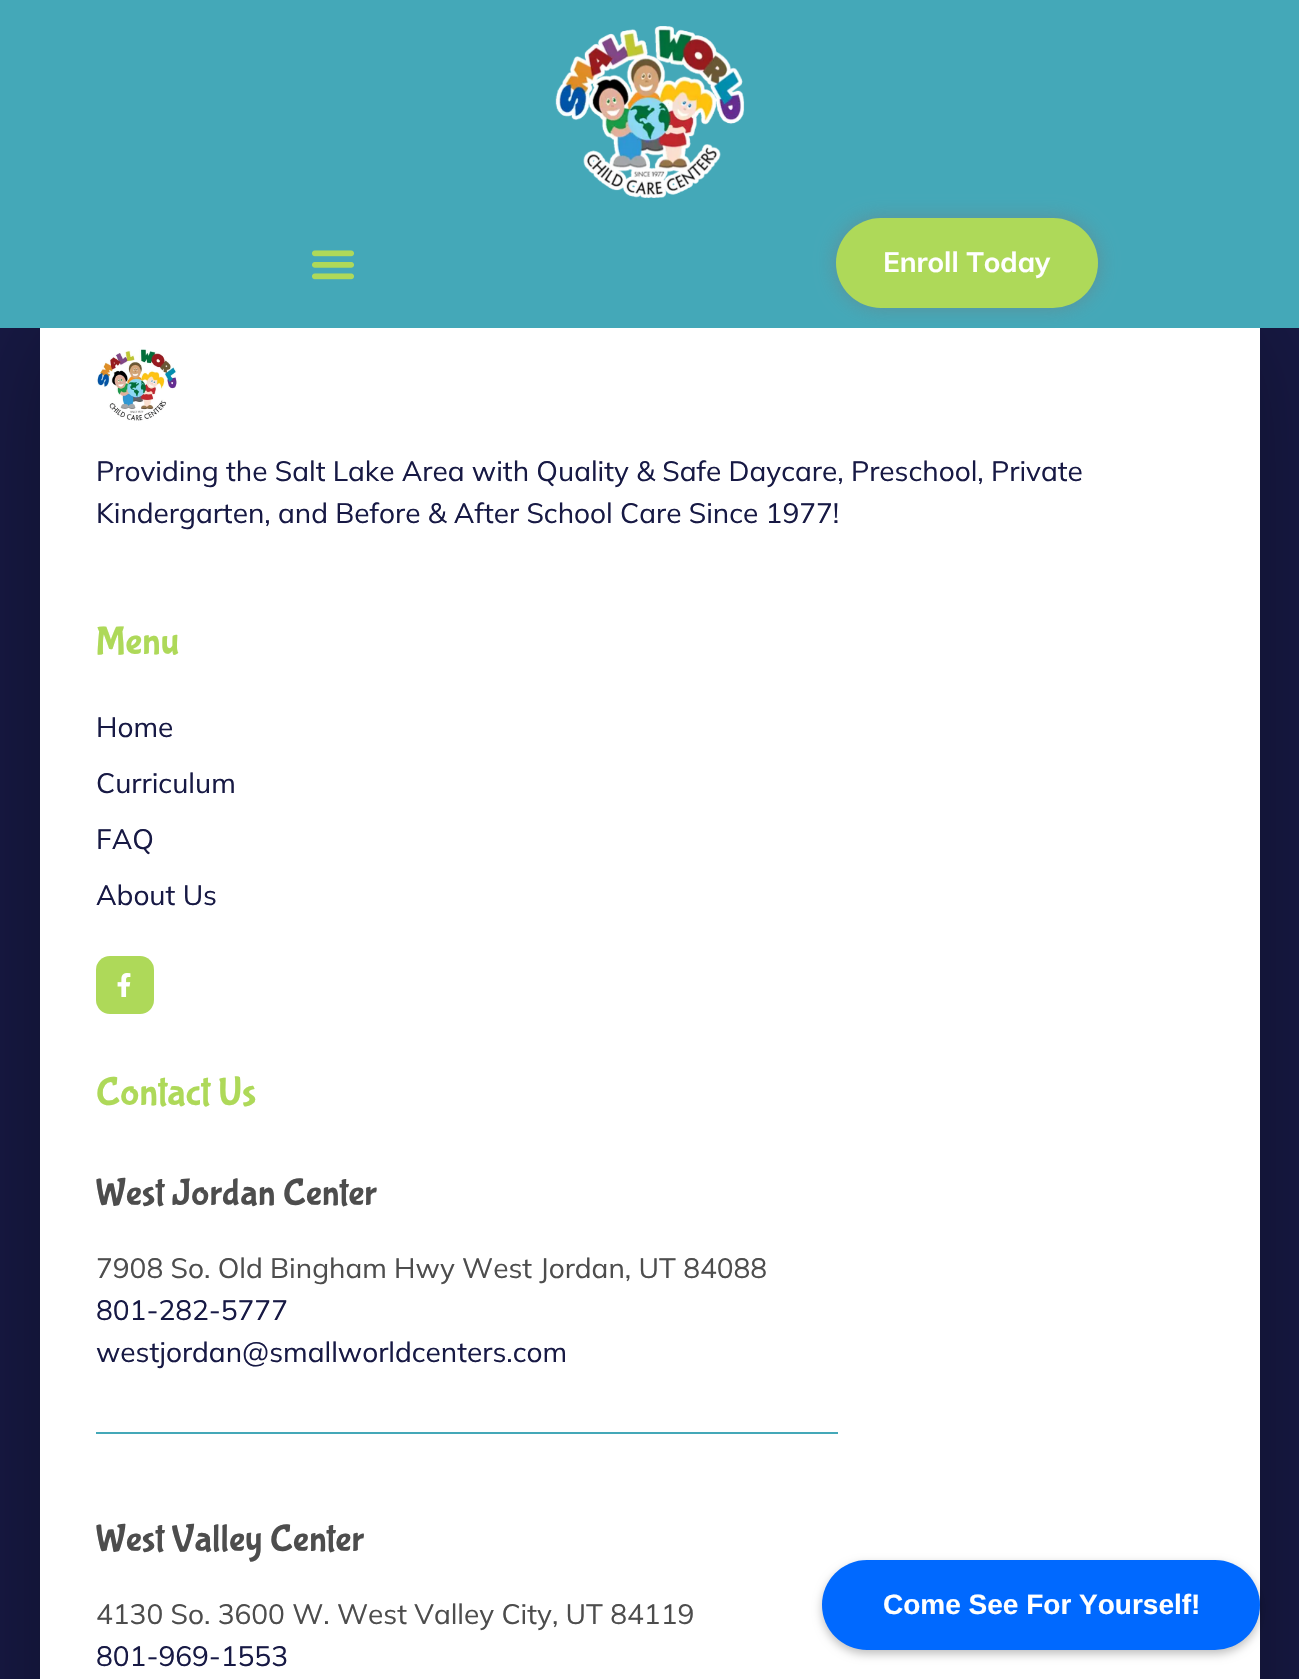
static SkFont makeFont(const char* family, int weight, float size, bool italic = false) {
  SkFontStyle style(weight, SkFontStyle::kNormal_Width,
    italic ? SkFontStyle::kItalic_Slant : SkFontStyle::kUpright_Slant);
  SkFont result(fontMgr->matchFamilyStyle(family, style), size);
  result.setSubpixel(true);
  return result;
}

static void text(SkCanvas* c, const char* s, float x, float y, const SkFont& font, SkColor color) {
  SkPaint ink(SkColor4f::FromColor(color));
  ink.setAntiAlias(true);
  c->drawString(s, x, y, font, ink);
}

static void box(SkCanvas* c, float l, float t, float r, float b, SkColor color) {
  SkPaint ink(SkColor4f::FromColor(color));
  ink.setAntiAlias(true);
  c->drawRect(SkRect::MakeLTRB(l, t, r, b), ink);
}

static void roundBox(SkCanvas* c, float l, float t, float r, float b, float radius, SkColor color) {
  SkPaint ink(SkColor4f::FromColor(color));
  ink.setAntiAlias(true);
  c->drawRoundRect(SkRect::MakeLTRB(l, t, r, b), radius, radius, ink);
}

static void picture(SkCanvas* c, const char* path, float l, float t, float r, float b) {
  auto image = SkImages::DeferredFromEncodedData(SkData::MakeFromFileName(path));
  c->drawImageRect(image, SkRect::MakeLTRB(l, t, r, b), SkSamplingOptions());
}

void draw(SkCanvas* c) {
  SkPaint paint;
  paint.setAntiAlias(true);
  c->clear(0xff171944);
  paint.setColor(0x59000000);
  paint.setMaskFilter(SkMaskFilter::MakeBlur(kNormal_SkBlurStyle, 60));
  c->drawRoundRect(SkRect::MakeLTRB(40, 310, 1260, 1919), 60, 60, paint);
  paint.setMaskFilter(nullptr);
  box(c, 0, 0, 1299, 328, 0xff44a8b8);
  picture(c, "img_01.png", 555, 26, 745, 198);
  picture(c, "img_02.png", 312, 250, 354, 280);
  box(c, 40, 328, 1260, 1679, 0xffffffff);
  paint.setColor(0x80777777);
  paint.setMaskFilter(SkMaskFilter::MakeBlur(kNormal_SkBlurStyle, 10));
  c->drawRoundRect(SkRect::MakeLTRB(836, 218, 1098, 308), 45, 45, paint);
  paint.setMaskFilter(nullptr);
  roundBox(c, 836, 218, 1098, 308, 45, 0xffaed959);
  SkFont face1 = makeFont("Mulish", 700, 28);
  text(c, "Enroll Today", 883, 272, face1, 0xffffffff);
  picture(c, "img_03.png", 96, 349, 177, 421);
  SkFont face2 = makeFont("Mulish", 400, 28);
  text(c, "Providing the Salt Lake Area with Quality & Safe Daycare, Preschool, Private", 96, 481, face2, 0xff171944);
  text(c, "Kindergarten, and Before & After School Care Since 1977!", 96, 523, face2, 0xff171944);
  SkFont face3 = makeFont("Bubblegum Sans", 400, 40);
  text(c, "Menu", 96, 653, face3, 0xffaed959);
  text(c, "Home", 96, 737, face2, 0xff171944);
  text(c, "Curriculum", 96, 793, face2, 0xff171944);
  text(c, "FAQ", 96, 849, face2, 0xff171944);
  text(c, "About Us", 96, 905, face2, 0xff171944);
  roundBox(c, 96, 956, 154, 1014, 14, 0xffaed959);
  picture(c, "img_04.png", 117, 973, 131, 997);
  text(c, "Contact Us", 96, 1104, face3, 0xffaed959);
  SkFont face4 = makeFont("Bubblegum Sans", 400, 38);
  text(c, "West Jordan Center", 96, 1204, face4, 0xff4d4d4d);
  text(c, "7908 So. Old Bingham Hwy West Jordan, UT 84088", 96, 1278, face2, 0xff4d4d4d);
  text(c, "801-282-5777", 96, 1320, face2, 0xff171944);
  text(c, "westjordan@smallworldcenters.com", 96, 1362, face2, 0xff171944);
  box(c, 96, 1432, 838, 1434, 0xff44a8b8);
  text(c, "West Valley Center", 96, 1550, face4, 0xff4d4d4d);
  text(c, "4130 So. 3600 W. West Valley City, UT 84119", 96, 1624, face2, 0xff4d4d4d);
  text(c, "801-969-1553", 96, 1666, face2, 0xff171944);
  paint.setColor(0x40000000);
  paint.setMaskFilter(SkMaskFilter::MakeBlur(kNormal_SkBlurStyle, 5));
  c->drawRoundRect(SkRect::MakeLTRB(822, 1564, 1260, 1654), 45, 45, paint);
  paint.setMaskFilter(nullptr);
  roundBox(c, 822, 1560, 1260, 1650, 45, 0xff0069ff);
  SkFont face5 = makeFont("Liberation Sans", 700, 28);
  text(c, "Come See For Yourself!", 883, 1614, face5, 0xffffffff);
}
